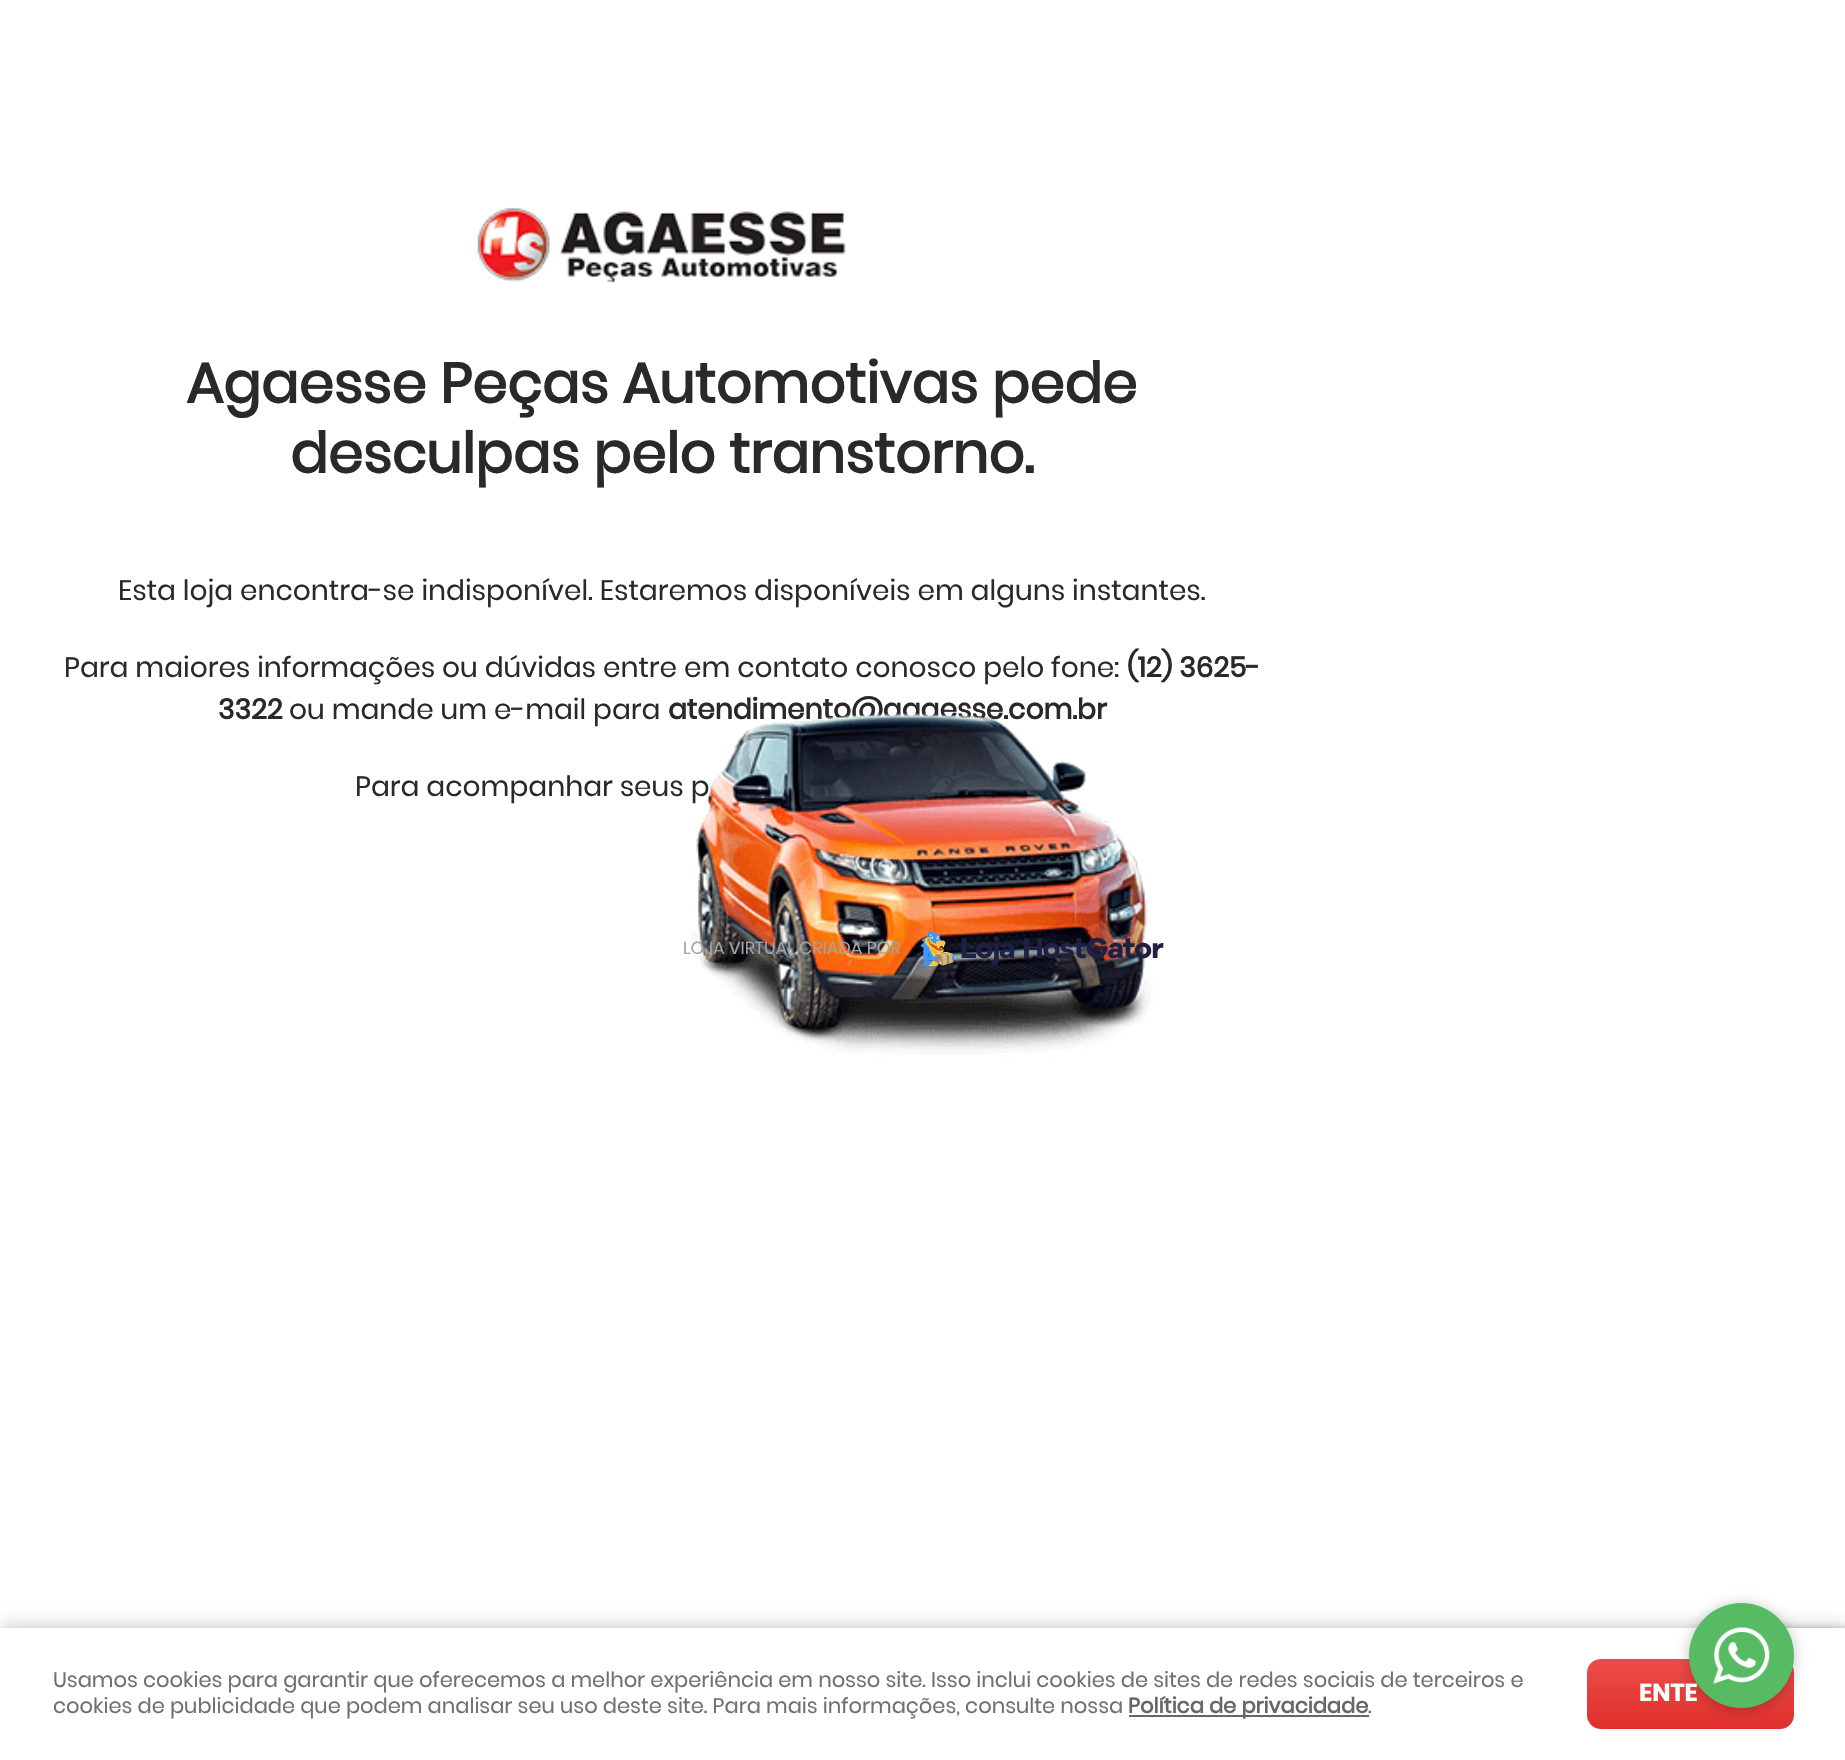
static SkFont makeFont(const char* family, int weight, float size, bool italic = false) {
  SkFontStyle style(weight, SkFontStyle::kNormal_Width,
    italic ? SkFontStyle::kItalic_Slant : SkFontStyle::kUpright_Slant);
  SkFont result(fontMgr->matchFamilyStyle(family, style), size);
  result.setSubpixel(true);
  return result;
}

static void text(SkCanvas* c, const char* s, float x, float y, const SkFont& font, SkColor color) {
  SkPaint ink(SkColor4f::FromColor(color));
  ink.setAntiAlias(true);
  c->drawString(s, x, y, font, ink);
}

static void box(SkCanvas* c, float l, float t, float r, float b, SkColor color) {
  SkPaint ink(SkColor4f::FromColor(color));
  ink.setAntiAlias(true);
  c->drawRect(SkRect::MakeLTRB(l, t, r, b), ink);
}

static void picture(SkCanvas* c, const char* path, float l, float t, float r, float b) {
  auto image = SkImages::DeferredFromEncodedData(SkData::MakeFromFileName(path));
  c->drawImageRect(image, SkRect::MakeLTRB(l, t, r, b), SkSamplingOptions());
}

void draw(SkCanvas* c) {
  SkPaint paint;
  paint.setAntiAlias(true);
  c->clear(0xffffffff);
  picture(c, "img_01.png", 477, 207, 846, 283);
  SkFont face1 = makeFont("Poppins", 700, 56);
  text(c, "Agaesse Peças Automotivas pede", 186, 403, face1, 0xff292929);
  text(c, "desculpas pelo transtorno.", 290, 473, face1, 0xff292929);
  SkFont face2 = makeFont("Poppins", 400, 28);
  text(c, "Esta loja encontra-se indisponível. Estaremos disponíveis em alguns instantes.", 118, 600, face2, 0xff292929);
  text(c, "Para maiores informações ou dúvidas entre em contato conosco pelo fone:", 64, 677, face2, 0xff292929);
  SkFont face3 = makeFont("Poppins", 700, 28);
  text(c, "(12) 3625-", 1127, 677, face3, 0xff292929);
  text(c, "3322", 218, 719, face3, 0xff292929);
  text(c, "ou mande um e-mail para", 289, 719, face2, 0xff292929);
  text(c, "atendimento@agaesse.com.br", 668, 719, face3, 0xff292929);
  text(c, "Para acompanhar seus p", 355, 796, face2, 0xff292929);
  picture(c, "img_02.png", 690, 713, 1155, 1057);
  SkFont face4 = makeFont("Poppins", 400, 17.5f);
  text(c, "LOJA VIRTUAL CRIADA POR", 683, 954, face4, 0xffa3a3a3);
  picture(c, "img_03.png", 920, 931, 1164, 966);
  paint.setColor(0x40000000);
  paint.setMaskFilter(SkMaskFilter::MakeBlur(kNormal_SkBlurStyle, 9));
  c->drawRect(SkRect::MakeLTRB(0, 1628, 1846, 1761), paint);
  paint.setMaskFilter(nullptr);
  paint.setColor(0xff808080);
  paint.setMaskFilter(SkMaskFilter::MakeBlur(kNormal_SkBlurStyle, 4.5f));
  c->drawRoundRect(SkRect::MakeLTRB(1724, 1631, 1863, 1736), 4, 4, paint);
  paint.setMaskFilter(nullptr);
  box(c, 0, 1628, 1845, 1760, 0xffffffff);
  {
    const SkColor colors[] = {0xffec4d49, 0xffe02f2b};
    const float stops[] = {0, 1};
    const SkPoint ends[] = {{1691, 1659}, {1691, 1729}};
    paint.setShader(SkGradientShader::MakeLinear(ends, colors, stops, 2, SkTileMode::kClamp));
    paint.setAlpha(255);
  }
  c->drawRoundRect(SkRect::MakeLTRB(1587, 1659, 1794, 1729), 14, 14, paint);
  paint.setShader(nullptr);
  paint.setColor(0x40000000);
  paint.setMaskFilter(SkMaskFilter::MakeBlur(kNormal_SkBlurStyle, 7));
  c->drawRoundRect(SkRect::MakeLTRB(1689, 1605, 1794, 1710), 52.5f, 52.5f, paint);
  paint.setMaskFilter(nullptr);
  SkFont face5 = makeFont("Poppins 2", 700, 24.5f);
  text(c, "ENTE", 1639, 1701, face5, 0xffffffff);
  paint.setColor(0xff57bb63);
  c->drawCircle(1741.5f, 1655.5f, 52.5f, paint);
  picture(c, "img_04.png", 1713, 1627, 1770, 1684);
  SkFont face6 = makeFont("Poppins", 400, 21);
  text(c, "Usamos cookies para garantir que oferecemos a melhor experiência em nosso site. Isso inclui cookies de sites de redes sociais de terceiros e", 53, 1687, face6, 0xff707070);
  text(c, "cookies de publicidade que podem analisar seu uso deste site. Para mais informações, consulte nossa", 53, 1713, face6, 0xff707070);
  box(c, 1129, 1715, 1369, 1717, 0xff666666);
  SkFont face7 = makeFont("Poppins", 700, 21);
  text(c, "Política de privacidade", 1128, 1713, face7, 0xff666666);
  text(c, ".", 1368, 1713, face6, 0xff707070);
}
